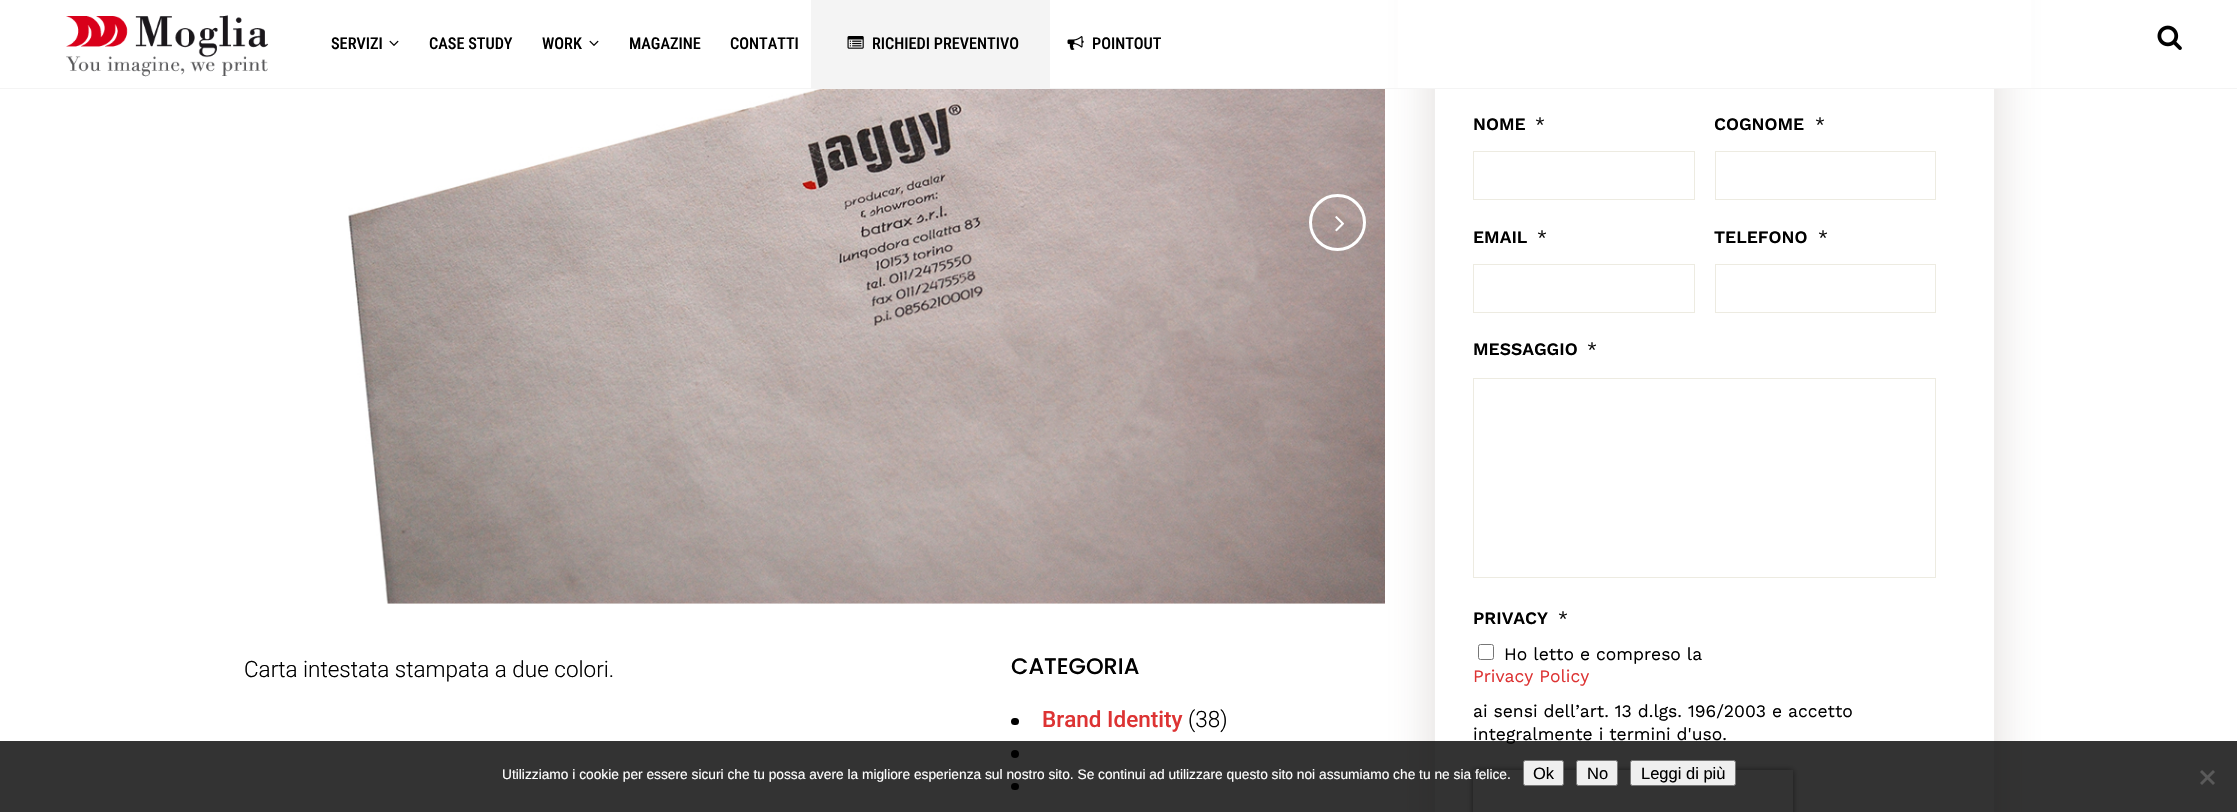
static SkFont makeFont(const char* family, int weight, float size, bool italic = false) {
  SkFontStyle style(weight, SkFontStyle::kNormal_Width,
    italic ? SkFontStyle::kItalic_Slant : SkFontStyle::kUpright_Slant);
  SkFont result(fontMgr->matchFamilyStyle(family, style), size);
  result.setSubpixel(true);
  return result;
}

static void text(SkCanvas* c, const char* s, float x, float y, const SkFont& font, SkColor color) {
  SkPaint ink(SkColor4f::FromColor(color));
  ink.setAntiAlias(true);
  c->drawString(s, x, y, font, ink);
}

static void box(SkCanvas* c, float l, float t, float r, float b, SkColor color) {
  SkPaint ink(SkColor4f::FromColor(color));
  ink.setAntiAlias(true);
  c->drawRect(SkRect::MakeLTRB(l, t, r, b), ink);
}

static void roundBox(SkCanvas* c, float l, float t, float r, float b, float radius, SkColor color) {
  SkPaint ink(SkColor4f::FromColor(color));
  ink.setAntiAlias(true);
  c->drawRoundRect(SkRect::MakeLTRB(l, t, r, b), radius, radius, ink);
}

static void picture(SkCanvas* c, const char* path, float l, float t, float r, float b) {
  auto image = SkImages::DeferredFromEncodedData(SkData::MakeFromFileName(path));
  c->drawImageRect(image, SkRect::MakeLTRB(l, t, r, b), SkSamplingOptions());
}

void draw(SkCanvas* c) {
  SkPaint paint;
  paint.setAntiAlias(true);
  c->clear(0xffffffff);
  picture(c, "img_06.png", 348, 89, 1385, 604);
  paint.setColor(0x335f4c3f);
  paint.setMaskFilter(SkMaskFilter::MakeBlur(kNormal_SkBlurStyle, 25));
  c->drawRoundRect(SkRect::MakeLTRB(1435, -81, 1994, 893), 6, 6, paint);
  paint.setMaskFilter(nullptr);
  box(c, 1398, 0, 2031, 88, 0xffffffff);
  box(c, 0, 88, 2237, 89, 0xfff4f4f4);
  picture(c, "img_01.png", 66, 15, 269, 77);
  SkFont face1 = makeFont("Roboto Condensed", 500, 16.25f);
  text(c, "SERVIZI", 331, 49, face1, 0xff000000);
  picture(c, "img_02.png", 389, 40, 399, 46);
  text(c, "CASE STUDY", 429, 49, face1, 0xff000000);
  text(c, "WORK", 542, 49, face1, 0xff000000);
  picture(c, "img_02.png", 589, 40, 599, 46);
  text(c, "MAGAZINE", 629, 49, face1, 0xff000000);
  text(c, "CONTATTI", 730, 49, face1, 0xff000000);
  box(c, 811, 0, 1050, 88, 0xfff4f4f4);
  picture(c, "img_03.png", 847, 36, 864, 49);
  text(c, "RICHIEDI PREVENTIVO", 872, 49, face1, 0xff000000);
  picture(c, "img_04.png", 1067, 36, 1084, 50);
  text(c, "POINTOUT", 1092, 49, face1, 0xff000000);
  picture(c, "img_05.png", 2157, 25, 2182, 50);
  paint.setStyle(SkPaint::kStroke_Style);
  paint.setStrokeWidth(3);
  paint.setColor(0xffffffff);
  c->drawCircle(1337.5f, 222.5f, 27, paint);
  picture(c, "img_07.png", 1335, 216, 1345, 232);
  SkFont face2 = makeFont("Roboto", 300, 22.5f);
  text(c, "Carta intestata stampata a due colori.", 244, 677, face2, 0xff000000);
  SkFont face3 = makeFont("Poppins", 500, 22.5f);
  text(c, "CATEGORIA", 1011, 674, face3, 0xff000000);
  roundBox(c, 1011, 718, 1019, 725, 3.5f, 0xff000000);
  SkFont face4 = makeFont("Roboto", 500, 22.5f);
  text(c, "Brand Identity", 1042, 727, face4, 0xffdd3333);
  text(c, "(38)", 1188, 727, face2, 0xff000000);
  paint.setStyle(SkPaint::kFill_Style);
  paint.setColor(0xff000000);
  c->drawCircle(1015, 754, 4, paint);
  roundBox(c, 1011, 783, 1019, 790, 3.5f, 0xff000000);
  box(c, 1435, 89, 1994, 812, 0xffffffff);
  SkFont face5 = makeFont("Work Sans", 600, 17.5f);
  text(c, "NOME", 1473, 130, face5, 0xff000000);
  SkFont face6 = makeFont("Work Sans", 400, 17.5f);
  text(c, "*", 1535, 130, face6, 0xff000000);
  paint.setStyle(SkPaint::kStroke_Style);
  paint.setStrokeWidth(1);
  paint.setColor(0xffedebe1);
  c->drawRect(SkRect::MakeLTRB(1473.5f, 151.5f, 1694.5f, 199.5f), paint);
  text(c, "COGNOME", 1714, 130, face5, 0xff000000);
  text(c, "*", 1815, 130, face6, 0xff000000);
  c->drawRect(SkRect::MakeLTRB(1715.5f, 151.5f, 1935.5f, 199.5f), paint);
  text(c, "EMAIL", 1473, 243, face5, 0xff000000);
  text(c, "*", 1537, 243, face6, 0xff000000);
  c->drawRect(SkRect::MakeLTRB(1473.5f, 264.5f, 1694.5f, 312.5f), paint);
  text(c, "TELEFONO", 1714, 243, face5, 0xff000000);
  text(c, "*", 1818, 243, face6, 0xff000000);
  c->drawRect(SkRect::MakeLTRB(1715.5f, 264.5f, 1935.5f, 312.5f), paint);
  text(c, "MESSAGGIO", 1473, 355, face5, 0xff000000);
  text(c, "*", 1587, 355, face6, 0xff000000);
  c->drawRect(SkRect::MakeLTRB(1473.5f, 378.5f, 1935.5f, 577.5f), paint);
  text(c, "PRIVACY", 1473, 624, face5, 0xff000000);
  text(c, "*", 1558, 624, face6, 0xff000000);
  paint.setColor(0xff767676);
  c->drawRoundRect(SkRect::MakeLTRB(1478.5f, 644.5f, 1493.5f, 659.5f), 2, 2, paint);
  text(c, "Ho letto e compreso la", 1504, 660, face6, 0xff000000);
  text(c, "Privacy Policy", 1473, 682, face6, 0xffdd3333);
  text(c, "ai sensi dell’art. 13 d.lgs. 196/2003 e accetto", 1473, 717, face6, 0xff000000);
  text(c, "integralmente i termini d'uso.", 1473, 740, face6, 0xff000000);
  c->save();
  c->clipPath(SkPathBuilder(SkPathFillType::kEvenOdd).moveTo(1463, 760).lineTo(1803, 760).lineTo(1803, 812).lineTo(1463, 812).close().moveTo(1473, 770).lineTo(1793, 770).lineTo(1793, 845).lineTo(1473, 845).close().detach(), true);
  paint.setStyle(SkPaint::kFill_Style);
  paint.setColor(0xff808080);
  paint.setMaskFilter(SkMaskFilter::MakeBlur(kNormal_SkBlurStyle, 3));
  c->drawRect(SkRect::MakeLTRB(1473, 770, 1793, 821), paint);
  paint.setMaskFilter(nullptr);
  c->restore();
  box(c, 0, 741, 2237, 812, 0xcc000000);
  SkFont face7 = makeFont("Liberation Sans", 400, 13.75f);
  text(c, "Utilizziamo i cookie per essere sicuri che tu possa avere la migliore esperienza sul nostro sito. Se continui ad utilizzare questo sito noi assumiamo che tu ne sia felice.", 502, 779, face7, 0xffffffff);
  paint.setColor(0xffefefef);
  c->drawRoundRect(SkRect::MakeLTRB(1523.5f, 760.5f, 1563.5f, 785.5f), 2, 2, paint);
  paint.setStyle(SkPaint::kStroke_Style);
  paint.setColor(0xff767676);
  c->drawRoundRect(SkRect::MakeLTRB(1523.5f, 760.5f, 1563.5f, 785.5f), 2, 2, paint);
  SkFont face8 = makeFont("Liberation Sans", 400, 16.5f);
  text(c, "Ok", 1533, 779, face8, 0xff000000);
  paint.setStyle(SkPaint::kFill_Style);
  paint.setColor(0xffefefef);
  c->drawRoundRect(SkRect::MakeLTRB(1576.5f, 760.5f, 1617.5f, 785.5f), 2, 2, paint);
  paint.setStyle(SkPaint::kStroke_Style);
  paint.setColor(0xff767676);
  c->drawRoundRect(SkRect::MakeLTRB(1576.5f, 760.5f, 1617.5f, 785.5f), 2, 2, paint);
  text(c, "No", 1587, 779, face8, 0xff000000);
  paint.setStyle(SkPaint::kFill_Style);
  paint.setColor(0xffefefef);
  c->drawRoundRect(SkRect::MakeLTRB(1630.5f, 760.5f, 1735.5f, 785.5f), 2, 2, paint);
  paint.setStyle(SkPaint::kStroke_Style);
  paint.setColor(0xff767676);
  c->drawRoundRect(SkRect::MakeLTRB(1630.5f, 760.5f, 1735.5f, 785.5f), 2, 2, paint);
  text(c, "Leggi di più", 1641, 779, face8, 0xff000000);
  paint.setStyle(SkPaint::kFill_Style);
  paint.setColor(0xff5a5a5a);
  c->drawPath(SkPathBuilder().moveTo(2213, 770).lineTo(2215, 772).lineTo(2202, 785).lineTo(2200, 783).close().detach(), paint);
  c->drawPath(SkPathBuilder().moveTo(2200, 772).lineTo(2202, 770).lineTo(2215, 783).lineTo(2213, 785).close().detach(), paint);
}
